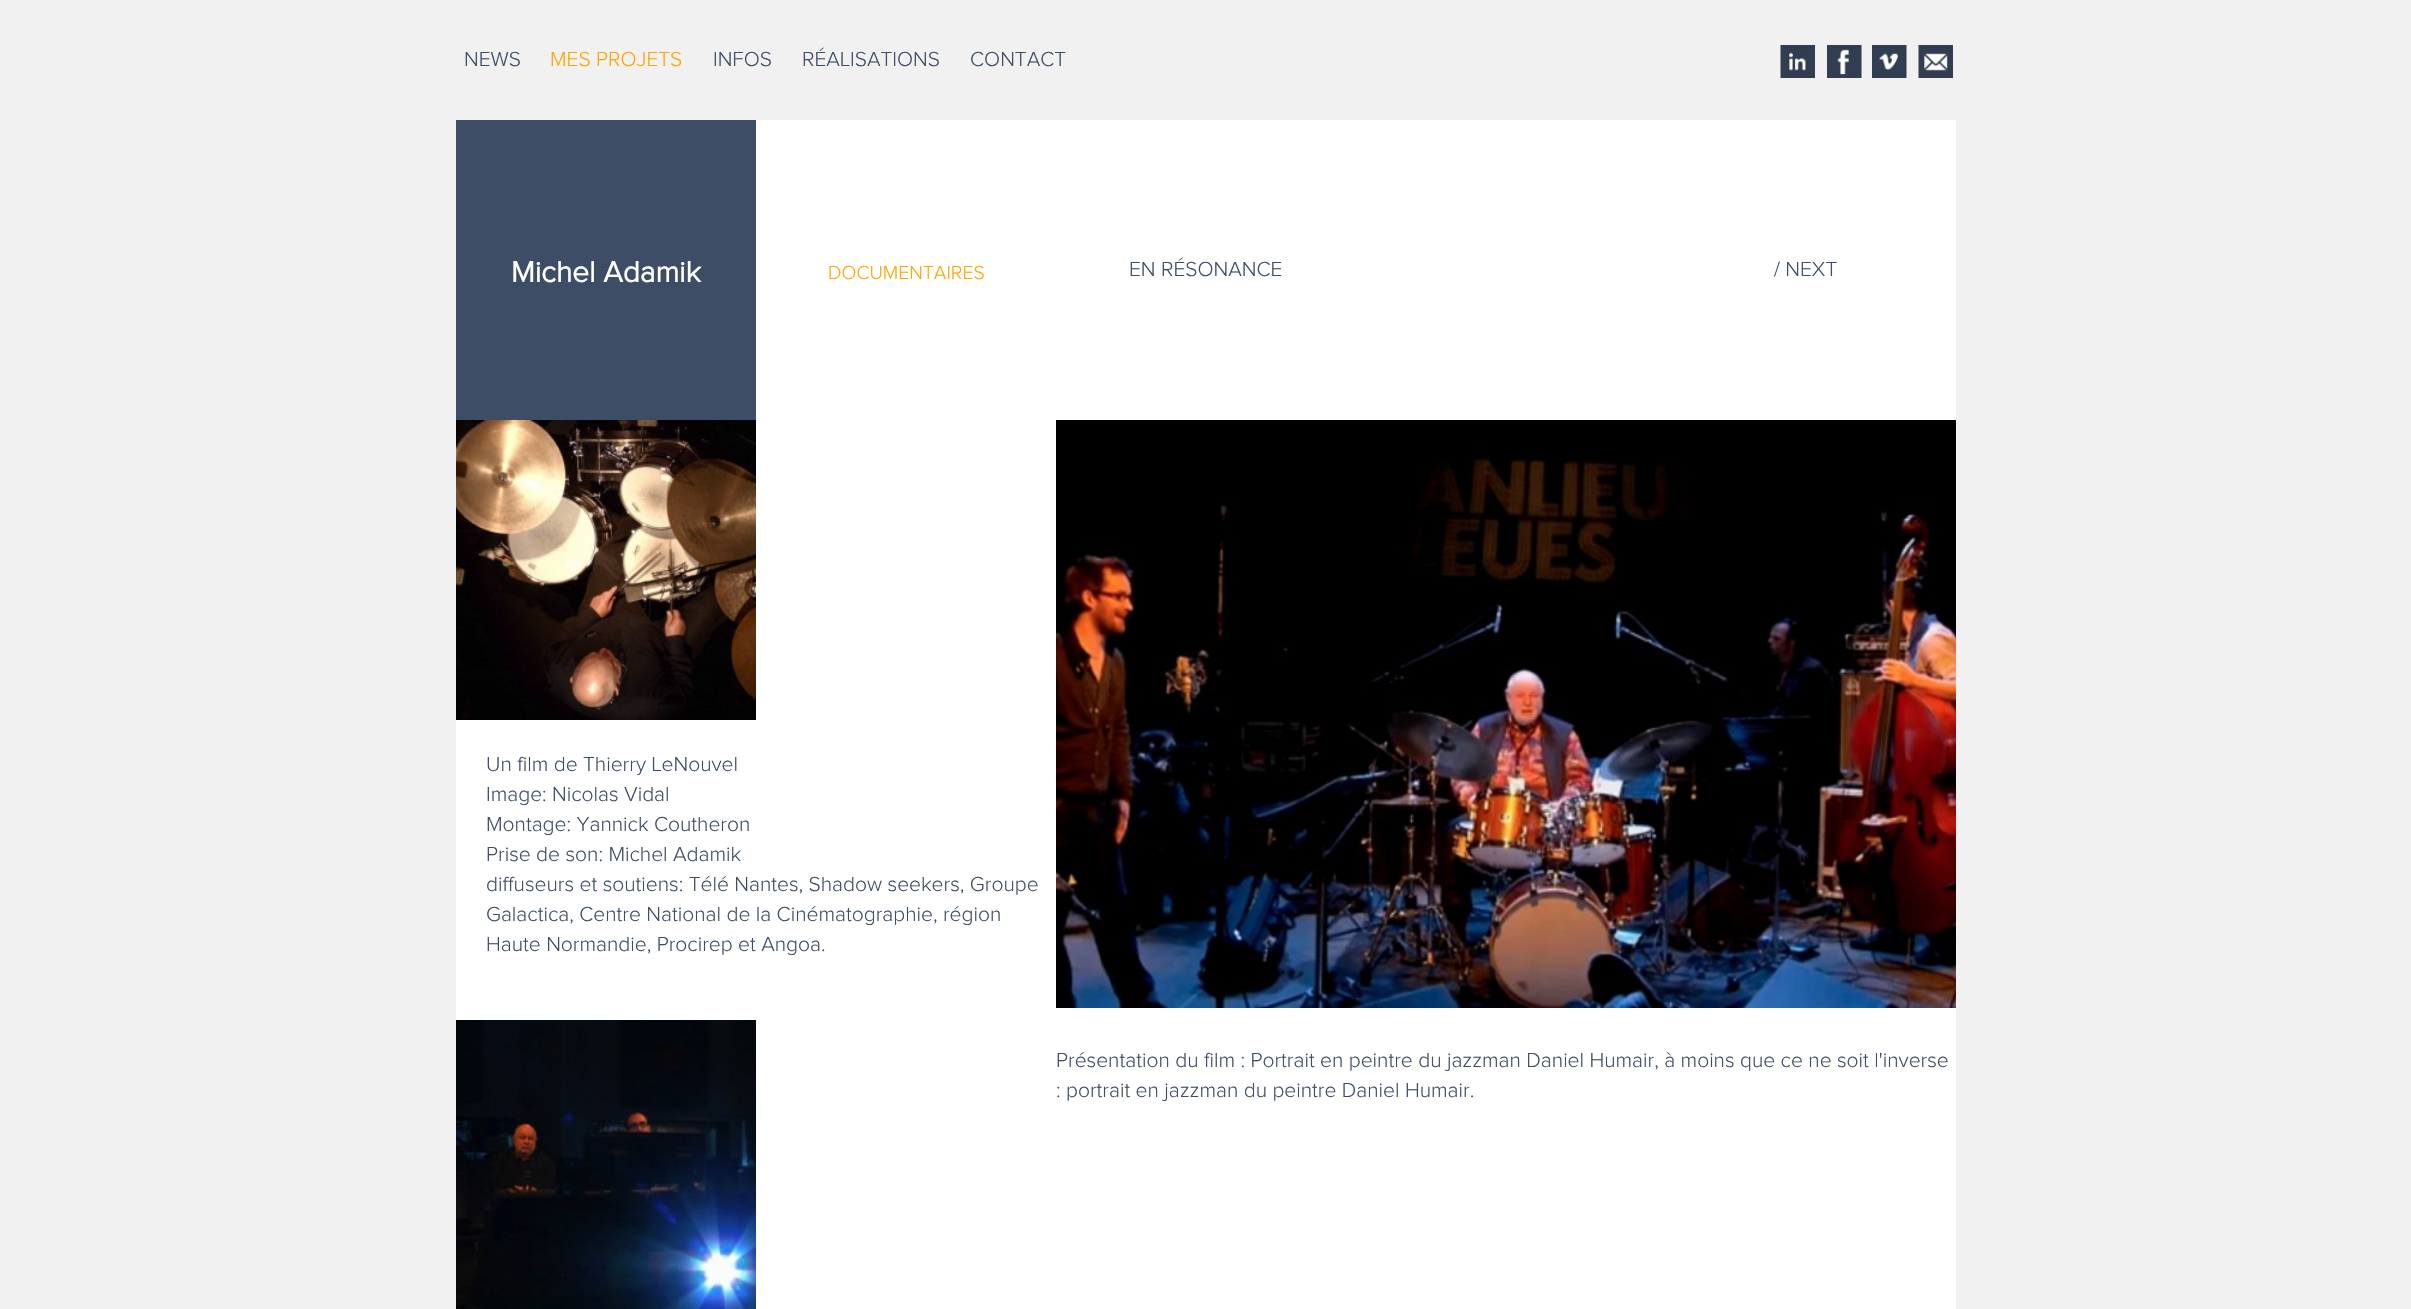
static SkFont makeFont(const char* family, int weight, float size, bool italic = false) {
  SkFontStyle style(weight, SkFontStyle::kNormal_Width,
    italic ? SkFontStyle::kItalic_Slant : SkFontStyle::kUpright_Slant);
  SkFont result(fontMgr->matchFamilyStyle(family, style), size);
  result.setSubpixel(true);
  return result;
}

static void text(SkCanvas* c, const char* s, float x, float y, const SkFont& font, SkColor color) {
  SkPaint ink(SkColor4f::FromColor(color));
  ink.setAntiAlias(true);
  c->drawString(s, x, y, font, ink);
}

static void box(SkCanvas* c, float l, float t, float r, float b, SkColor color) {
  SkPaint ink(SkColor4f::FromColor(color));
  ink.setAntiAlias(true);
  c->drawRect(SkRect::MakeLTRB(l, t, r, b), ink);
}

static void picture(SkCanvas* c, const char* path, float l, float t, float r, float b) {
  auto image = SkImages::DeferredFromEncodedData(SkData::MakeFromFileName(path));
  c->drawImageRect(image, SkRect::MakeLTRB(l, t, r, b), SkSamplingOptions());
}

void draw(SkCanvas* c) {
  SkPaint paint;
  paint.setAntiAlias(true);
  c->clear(0xfff1f1f1);
  box(c, 456, 120, 1956, 1309, 0xffffffff);
  SkFont face1 = makeFont("Proxima Nova", 300, 21);
  text(c, "NEWS", 464, 66, face1, 0xff3d4d66);
  text(c, "MES PROJETS", 550, 66, face1, 0xffffa500);
  text(c, "INFOS", 713, 66, face1, 0xff3d4d66);
  text(c, "RÉALISATIONS", 802, 66, face1, 0xff3d4d66);
  text(c, "CONTACT", 970, 66, face1, 0xff3d4d66);
  picture(c, "img_01.png", 1780, 45, 1815, 78);
  picture(c, "img_02.png", 1827, 45, 1862, 78);
  picture(c, "img_03.png", 1872, 45, 1907, 78);
  picture(c, "img_04.png", 1918, 45, 1953, 78);
  box(c, 456, 120, 756, 420, 0xff3d4d66);
  SkFont face2 = makeFont("Proxima Nova", 700, 30);
  text(c, "Michel Adamik", 511, 282, face2, 0xffffffff);
  SkFont face3 = makeFont("Proxima Nova", 300, 19.5f);
  text(c, "DOCUMENTAIRES", 828, 279, face3, 0xffffa500);
  text(c, "EN RÉSONANCE", 1129, 276, face1, 0xff3d4d66);
  text(c, "/ NEXT", 1774, 276, face1, 0xff3d4d66);
  picture(c, "img_05.png", 456, 420, 756, 720);
  text(c, "Un film de Thierry LeNouvel", 486, 771, face1, 0xff3d4d66);
  text(c, "Image: Nicolas Vidal", 486, 801, face1, 0xff3d4d66);
  text(c, "Montage: Yannick Coutheron", 486, 831, face1, 0xff3d4d66);
  text(c, "Prise de son: Michel Adamik", 486, 861, face1, 0xff3d4d66);
  text(c, "diffuseurs et soutiens: Télé Nantes, Shadow seekers, Groupe", 486, 891, face1, 0xff3d4d66);
  text(c, "Galactica, Centre National de la Cinématographie, région", 486, 921, face1, 0xff3d4d66);
  text(c, "Haute Normandie, Procirep et Angoa.", 486, 951, face1, 0xff3d4d66);
  picture(c, "img_06.png", 1056, 420, 1956, 1008);
  picture(c, "img_07.png", 456, 1020, 756, 1309);
  text(c, "Présentation du film : Portrait en peintre du jazzman Daniel Humair, à moins que ce ne soit l'inverse", 1056, 1067, face1, 0xff3d4d66);
  text(c, ": portrait en jazzman du peintre Daniel Humair.", 1056, 1097, face1, 0xff3d4d66);
}
